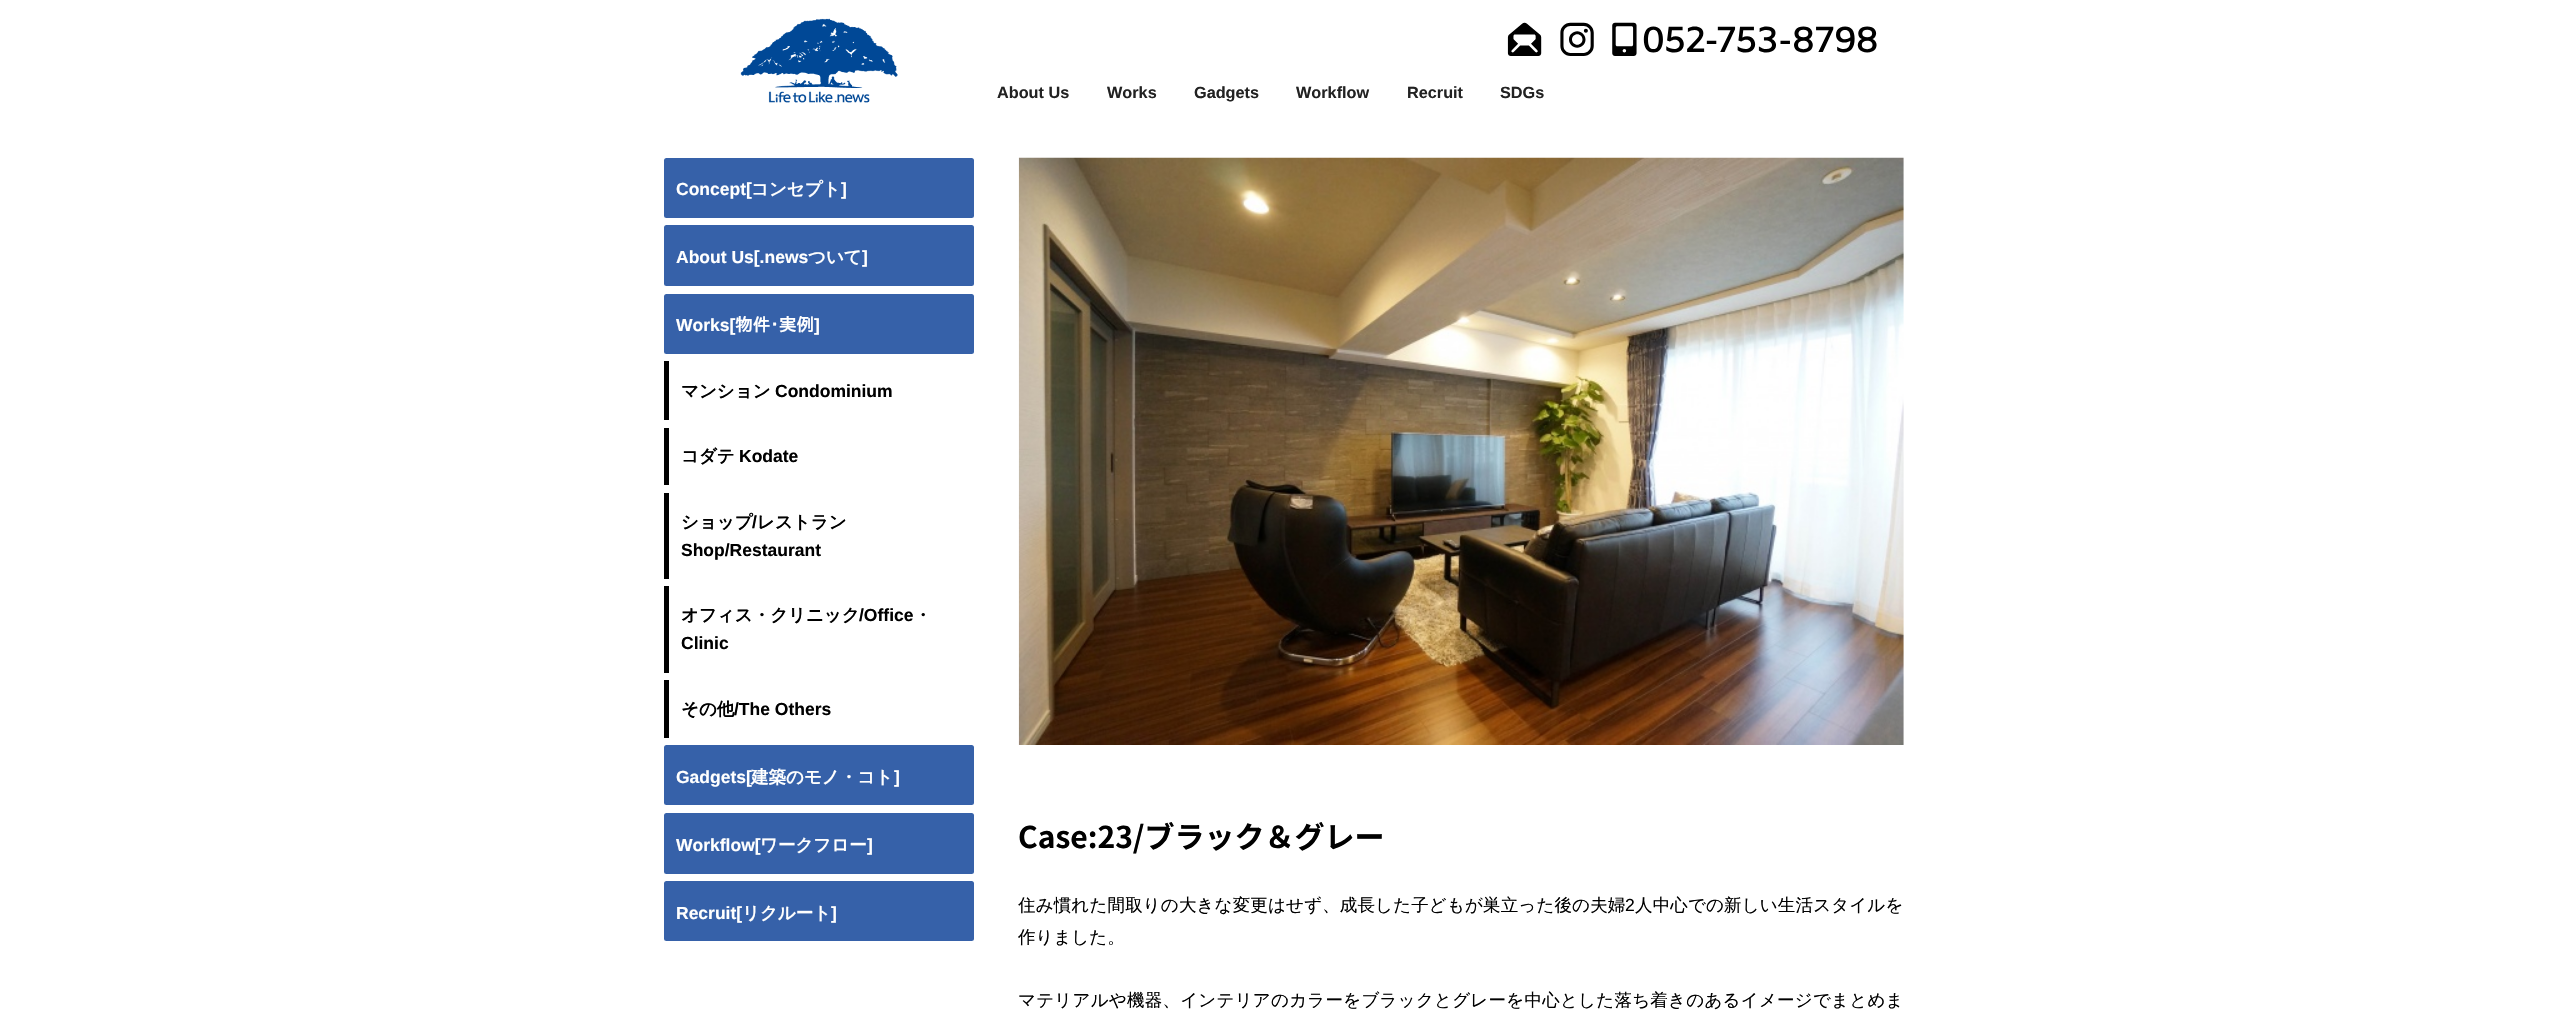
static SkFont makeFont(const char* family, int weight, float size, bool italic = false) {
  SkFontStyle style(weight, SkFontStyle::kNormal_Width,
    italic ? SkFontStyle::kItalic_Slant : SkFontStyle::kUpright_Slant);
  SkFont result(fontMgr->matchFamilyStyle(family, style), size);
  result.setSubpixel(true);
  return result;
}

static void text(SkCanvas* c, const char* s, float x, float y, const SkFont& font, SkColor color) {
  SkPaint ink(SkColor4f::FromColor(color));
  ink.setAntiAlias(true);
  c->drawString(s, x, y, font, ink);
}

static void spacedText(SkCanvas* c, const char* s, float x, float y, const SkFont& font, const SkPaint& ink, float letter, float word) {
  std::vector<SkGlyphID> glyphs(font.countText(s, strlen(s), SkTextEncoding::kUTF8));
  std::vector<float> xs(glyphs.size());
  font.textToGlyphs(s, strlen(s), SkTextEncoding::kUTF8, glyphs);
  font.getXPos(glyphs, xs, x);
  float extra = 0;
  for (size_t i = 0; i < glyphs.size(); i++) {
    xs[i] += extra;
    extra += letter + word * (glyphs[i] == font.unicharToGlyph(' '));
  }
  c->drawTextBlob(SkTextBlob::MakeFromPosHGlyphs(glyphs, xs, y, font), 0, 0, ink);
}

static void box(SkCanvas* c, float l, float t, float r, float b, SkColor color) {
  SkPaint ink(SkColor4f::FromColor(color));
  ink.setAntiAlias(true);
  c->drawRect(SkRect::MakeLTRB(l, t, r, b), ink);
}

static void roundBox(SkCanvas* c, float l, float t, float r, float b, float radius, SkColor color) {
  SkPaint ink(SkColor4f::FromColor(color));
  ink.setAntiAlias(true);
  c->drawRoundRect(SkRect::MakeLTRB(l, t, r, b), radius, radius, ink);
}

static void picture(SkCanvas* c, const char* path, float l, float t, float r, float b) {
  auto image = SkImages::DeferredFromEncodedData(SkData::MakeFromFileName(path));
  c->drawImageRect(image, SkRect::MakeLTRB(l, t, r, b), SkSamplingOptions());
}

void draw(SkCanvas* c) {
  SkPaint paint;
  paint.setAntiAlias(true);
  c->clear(0xffffffff);
  picture(c, "img_01.png", 740, 18, 898, 103);
  picture(c, "img_02.png", 1507, 22, 1542, 56);
  picture(c, "img_03.png", 1560, 22, 1594, 56);
  picture(c, "img_04.png", 1612, 22, 1877, 56);
  SkFont face1 = makeFont("Liberation Sans", 700, 16.25f);
  text(c, "About Us", 997, 98, face1, 0xff222222);
  text(c, "Works", 1107, 98, face1, 0xff222222);
  text(c, "Gadgets", 1194, 98, face1, 0xff222222);
  text(c, "Workflow", 1296, 98, face1, 0xff222222);
  text(c, "Recruit", 1407, 98, face1, 0xff222222);
  text(c, "SDGs", 1500, 98, face1, 0xff222222);
  roundBox(c, 664, 158, 974, 218, 2.5f, 0xff3661a9);
  SkFont face2 = makeFont("Liberation Sans", 700, 17.5f);
  text(c, "Concept[", 676, 195, face2, 0xffffffff);
  SkFont face3 = makeFont("WenQuanYi Zen Hei", 700, 17.5f);
  text(c, "コンセプト", 751, 195, face3, 0xffffffff);
  text(c, "]", 841, 195, face2, 0xffffffff);
  roundBox(c, 664, 225, 974, 286, 2.5f, 0xff3661a9);
  text(c, "About Us[.news", 676, 263, face2, 0xffffffff);
  text(c, "ついて", 808, 263, face3, 0xffffffff);
  text(c, "]", 862, 263, face2, 0xffffffff);
  roundBox(c, 664, 294, 974, 354, 2.5f, 0xff3661a9);
  text(c, "Works[", 676, 331, face2, 0xffffffff);
  SkFont face4 = makeFont("IPAPGothic", 700, 17.5f);
  text(c, "物件･実例", 735, 331, face4, 0xffffffff);
  text(c, "]", 814, 331, face2, 0xffffffff);
  box(c, 664, 361, 669, 420, 0xff000000);
  text(c, "マンション", 681, 397, face3, 0xff000000);
  text(c, "Condominium", 775, 397, face2, 0xff000000);
  box(c, 664, 428, 669, 485, 0xff000000);
  text(c, "コダテ", 681, 462, face3, 0xff000000);
  text(c, "Kodate", 739, 462, face2, 0xff000000);
  box(c, 664, 493, 669, 579, 0xff000000);
  text(c, "ショップ", 681, 528, face3, 0xff000000);
  text(c, "/", 752, 528, face2, 0xff000000);
  text(c, "レストラン", 757, 528, face3, 0xff000000);
  text(c, "Shop/Restaurant", 681, 556, face2, 0xff000000);
  box(c, 664, 586, 669, 673, 0xff000000);
  text(c, "オフィス・クリニック", 681, 621, face3, 0xff000000);
  text(c, "/Office", 859, 621, face2, 0xff000000);
  text(c, "・", 914, 621, face3, 0xff000000);
  text(c, "Clinic", 681, 649, face2, 0xff000000);
  box(c, 664, 680, 669, 738, 0xff000000);
  text(c, "その他", 681, 715, face3, 0xff000000);
  text(c, "/The Others", 734, 715, face2, 0xff000000);
  roundBox(c, 664, 745, 974, 805, 2.5f, 0xff3661a9);
  text(c, "Gadgets[", 676, 783, face2, 0xffffffff);
  text(c, "建築のモノ・コト", 751, 783, face3, 0xffffffff);
  text(c, "]", 894, 783, face2, 0xffffffff);
  roundBox(c, 664, 813, 974, 874, 2.5f, 0xff3661a9);
  text(c, "Workflow[", 676, 851, face2, 0xffffffff);
  text(c, "ワークフロー", 760, 851, face3, 0xffffffff);
  text(c, "]", 867, 851, face2, 0xffffffff);
  roundBox(c, 664, 881, 974, 941, 2.5f, 0xff3661a9);
  text(c, "Recruit[", 676, 919, face2, 0xffffffff);
  text(c, "リクルート", 742, 919, face3, 0xffffffff);
  text(c, "]", 831, 919, face2, 0xffffffff);
  picture(c, "img_05.png", 1018, 157, 1904, 745);
  SkFont face5 = makeFont("Noto Sans JP", 700, 30);
  text(c, "Case:23/ブラック＆グレー", 1018, 848, face5, 0xff000000);
  SkFont face6 = makeFont("WenQuanYi Zen Hei", 500, 17.5f);
  paint.setColor(0xff000000);
  spacedText(c, "住み慣れた間取りの大きな変更はせず、成長した子どもが巣立った後の夫婦", 1018, 911, face6, paint, 0.15f, 0);
  SkFont face7 = makeFont("Liberation Sans", 400, 17.5f);
  spacedText(c, "2", 1625, 911, face7, paint, 0.15f, 0);
  spacedText(c, "人中心での新しい生活スタイルを", 1635, 911, face6, paint, 0.15f, 0);
  text(c, "作りました。", 1018, 943, face6, 0xff000000);
  spacedText(c, "マテリアルや機器、インテリアのカラーをブラックとグレーを中心とした落ち着きのあるイメージでまとめま", 1018, 1006, face6, paint, 0.25f, 0);
}
